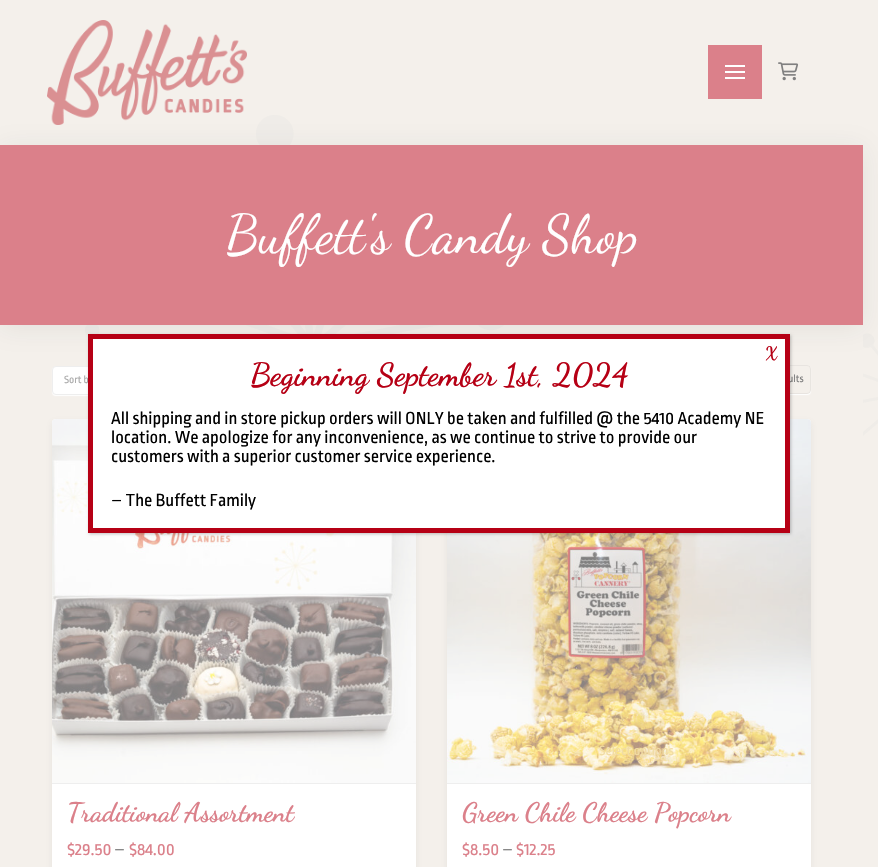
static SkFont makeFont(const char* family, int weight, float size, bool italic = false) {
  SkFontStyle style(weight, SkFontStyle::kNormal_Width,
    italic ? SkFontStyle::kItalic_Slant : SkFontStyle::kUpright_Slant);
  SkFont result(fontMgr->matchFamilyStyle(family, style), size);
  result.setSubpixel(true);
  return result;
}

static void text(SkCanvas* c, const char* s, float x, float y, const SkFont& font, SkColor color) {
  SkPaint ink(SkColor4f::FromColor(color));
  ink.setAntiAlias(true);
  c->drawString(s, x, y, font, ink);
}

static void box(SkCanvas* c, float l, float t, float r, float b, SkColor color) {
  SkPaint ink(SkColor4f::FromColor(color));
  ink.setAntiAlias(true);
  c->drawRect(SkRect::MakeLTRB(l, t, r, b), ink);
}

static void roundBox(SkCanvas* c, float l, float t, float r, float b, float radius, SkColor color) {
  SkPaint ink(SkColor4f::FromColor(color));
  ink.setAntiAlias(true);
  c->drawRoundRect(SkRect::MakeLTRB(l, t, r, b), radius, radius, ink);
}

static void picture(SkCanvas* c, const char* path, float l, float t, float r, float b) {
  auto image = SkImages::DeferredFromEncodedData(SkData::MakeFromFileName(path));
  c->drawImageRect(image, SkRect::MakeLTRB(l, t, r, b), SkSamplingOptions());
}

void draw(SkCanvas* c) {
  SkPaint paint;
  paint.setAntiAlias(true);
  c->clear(0xfff4f0eb);
  picture(c, "img_01.png", 863, 333, 878, 436);
  picture(c, "img_02.png", 85, 115, 504, 336);
  picture(c, "img_03.png", 47, 20, 247, 125);
  box(c, 708, 45, 762, 99, 0xffdb808a);
  box(c, 725, 65, 745, 67, 0xffffffff);
  box(c, 725, 71, 745, 73, 0xffffffff);
  box(c, 725, 77, 745, 79, 0xffffffff);
  picture(c, "img_04.png", 778, 62, 799, 81);
  paint.setColor(0xf2ffffff);
  paint.setMaskFilter(SkMaskFilter::MakeBlur(kNormal_SkBlurStyle, 0.5f));
  c->drawRoundRect(SkRect::MakeLTRB(52, 367, 191, 396), 4, 4, paint);
  paint.setMaskFilter(nullptr);
  paint.setColor(0xffffffff);
  c->drawRoundRect(SkRect::MakeLTRB(52.5f, 366.5f, 190.5f, 394.5f), 3.5f, 3.5f, paint);
  paint.setStyle(SkPaint::kStroke_Style);
  paint.setStrokeWidth(1);
  paint.setColor(0xffeeeeee);
  c->drawRoundRect(SkRect::MakeLTRB(52.5f, 366.5f, 190.5f, 394.5f), 3.5f, 3.5f, paint);
  c->save();
  c->clipPath(SkPathBuilder(SkPathFillType::kEvenOdd).moveTo(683, 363).lineTo(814, 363).lineTo(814, 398).lineTo(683, 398).close().moveTo(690, 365).lineTo(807, 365).cubicTo(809, 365, 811, 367, 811, 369).lineTo(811, 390).cubicTo(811, 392, 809, 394, 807, 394).lineTo(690, 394).cubicTo(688, 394, 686, 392, 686, 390).lineTo(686, 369).cubicTo(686, 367, 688, 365, 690, 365).close().detach(), true);
  paint.setStyle(SkPaint::kFill_Style);
  paint.setColor(0xf2ffffff);
  paint.setMaskFilter(SkMaskFilter::MakeBlur(kNormal_SkBlurStyle, 0.5f));
  c->drawRoundRect(SkRect::MakeLTRB(686, 366, 811, 395), 4, 4, paint);
  paint.setMaskFilter(nullptr);
  c->restore();
  paint.setStyle(SkPaint::kStroke_Style);
  paint.setColor(0x1a808080);
  c->drawRoundRect(SkRect::MakeLTRB(686.5f, 365.5f, 810.5f, 393.5f), 3.5f, 3.5f, paint);
  paint.setStyle(SkPaint::kFill_Style);
  paint.setColor(0x26808080);
  paint.setMaskFilter(SkMaskFilter::MakeBlur(kNormal_SkBlurStyle, 12.5f));
  c->drawRect(SkRect::MakeLTRB(0, 148, 863, 328), paint);
  paint.setMaskFilter(nullptr);
  box(c, 0, 145, 863, 325, 0xffdb808a);
  SkFont face1 = makeFont("Dancing Script", 400, 54);
  text(c, "Buffett's Candy Shop", 226, 252, face1, 0xffffffff);
  SkFont face2 = makeFont("Ropa Sans", 400, 11);
  text(c, "Sort b", 64, 383, face2, 0xffaaaaaa);
  text(c, "ults", 788, 382, face2, 0xff808080);
  paint.setColor(0x21808080);
  paint.setMaskFilter(SkMaskFilter::MakeBlur(kNormal_SkBlurStyle, 3));
  c->drawRoundRect(SkRect::MakeLTRB(52, 422, 416, 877), 4, 4, paint);
  paint.setMaskFilter(nullptr);
  roundBox(c, 52, 419, 416, 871, 4, 0xffffffff);
  box(c, 52, 783, 416, 784, 0xffeeeeee);
  picture(c, "img_05.png", 52, 419, 416, 783);
  SkFont face3 = makeFont("Dancing Script", 700, 26.6f);
  text(c, "Traditional Assortment", 67, 821, face3, 0xffdb808a);
  SkFont face4 = makeFont("Ropa Sans", 400, 18);
  text(c, "$29.50", 67, 855, face4, 0xffdb808a);
  text(c, "–", 114, 855, face4, 0xff808080);
  text(c, "$84.00", 129, 855, face4, 0xffdb808a);
  paint.setMaskFilter(SkMaskFilter::MakeBlur(kNormal_SkBlurStyle, 3));
  c->drawRoundRect(SkRect::MakeLTRB(447, 422, 811, 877), 4, 4, paint);
  paint.setMaskFilter(nullptr);
  roundBox(c, 447, 419, 811, 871, 4, 0xffffffff);
  box(c, 447, 783, 811, 784, 0xffeeeeee);
  picture(c, "img_06.png", 447, 419, 811, 783);
  SkFont face5 = makeFont("Ropa Sans", 400, 14);
  text(c, "Select options", 599, 755, face5, 0xfff1dca5);
  text(c, "Green Chile Cheese Popcorn", 462, 821, face3, 0xffdb808a);
  text(c, "$8.50", 462, 855, face4, 0xffdb808a);
  text(c, "–", 502, 855, face4, 0xff808080);
  text(c, "$12.25", 516, 855, face4, 0xffdb808a);
  paint.setColor(0x3b020202);
  paint.setMaskFilter(SkMaskFilter::MakeBlur(kNormal_SkBlurStyle, 1.5f));
  c->drawRect(SkRect::MakeLTRB(89, 335, 791, 534), paint);
  paint.setMaskFilter(nullptr);
  paint.setColor(0xffffffff);
  c->drawRect(SkRect::MakeLTRB(90.5f, 336.5f, 787.5f, 530.5f), paint);
  paint.setStyle(SkPaint::kStroke_Style);
  paint.setStrokeWidth(5);
  paint.setColor(0xffb60015);
  c->drawRect(SkRect::MakeLTRB(90.5f, 336.5f, 787.5f, 530.5f), paint);
  SkFont face6 = makeFont("Dancing Script", 700, 18);
  text(c, "X", 765, 359, face6, 0xffb60015);
  SkFont face7 = makeFont("Dancing Script", 700, 32);
  text(c, "Beginning September 1st, 2024", 250, 385, face7, 0xffb60015);
  SkFont face8 = makeFont("Ropa Sans", 400, 18.4f);
  text(c, "All shipping and in store pickup orders will ONLY be taken and fulfilled @ the 5410 Academy NE", 111, 424, face8, 0xff000000);
  text(c, "location. We apologize for any inconvenience, as we continue to strive to provide our", 111, 443, face8, 0xff000000);
  text(c, "customers with a superior customer service experience.", 111, 462, face8, 0xff000000);
  text(c, "– The Buffett Family", 111, 506, face8, 0xff000000);
}
